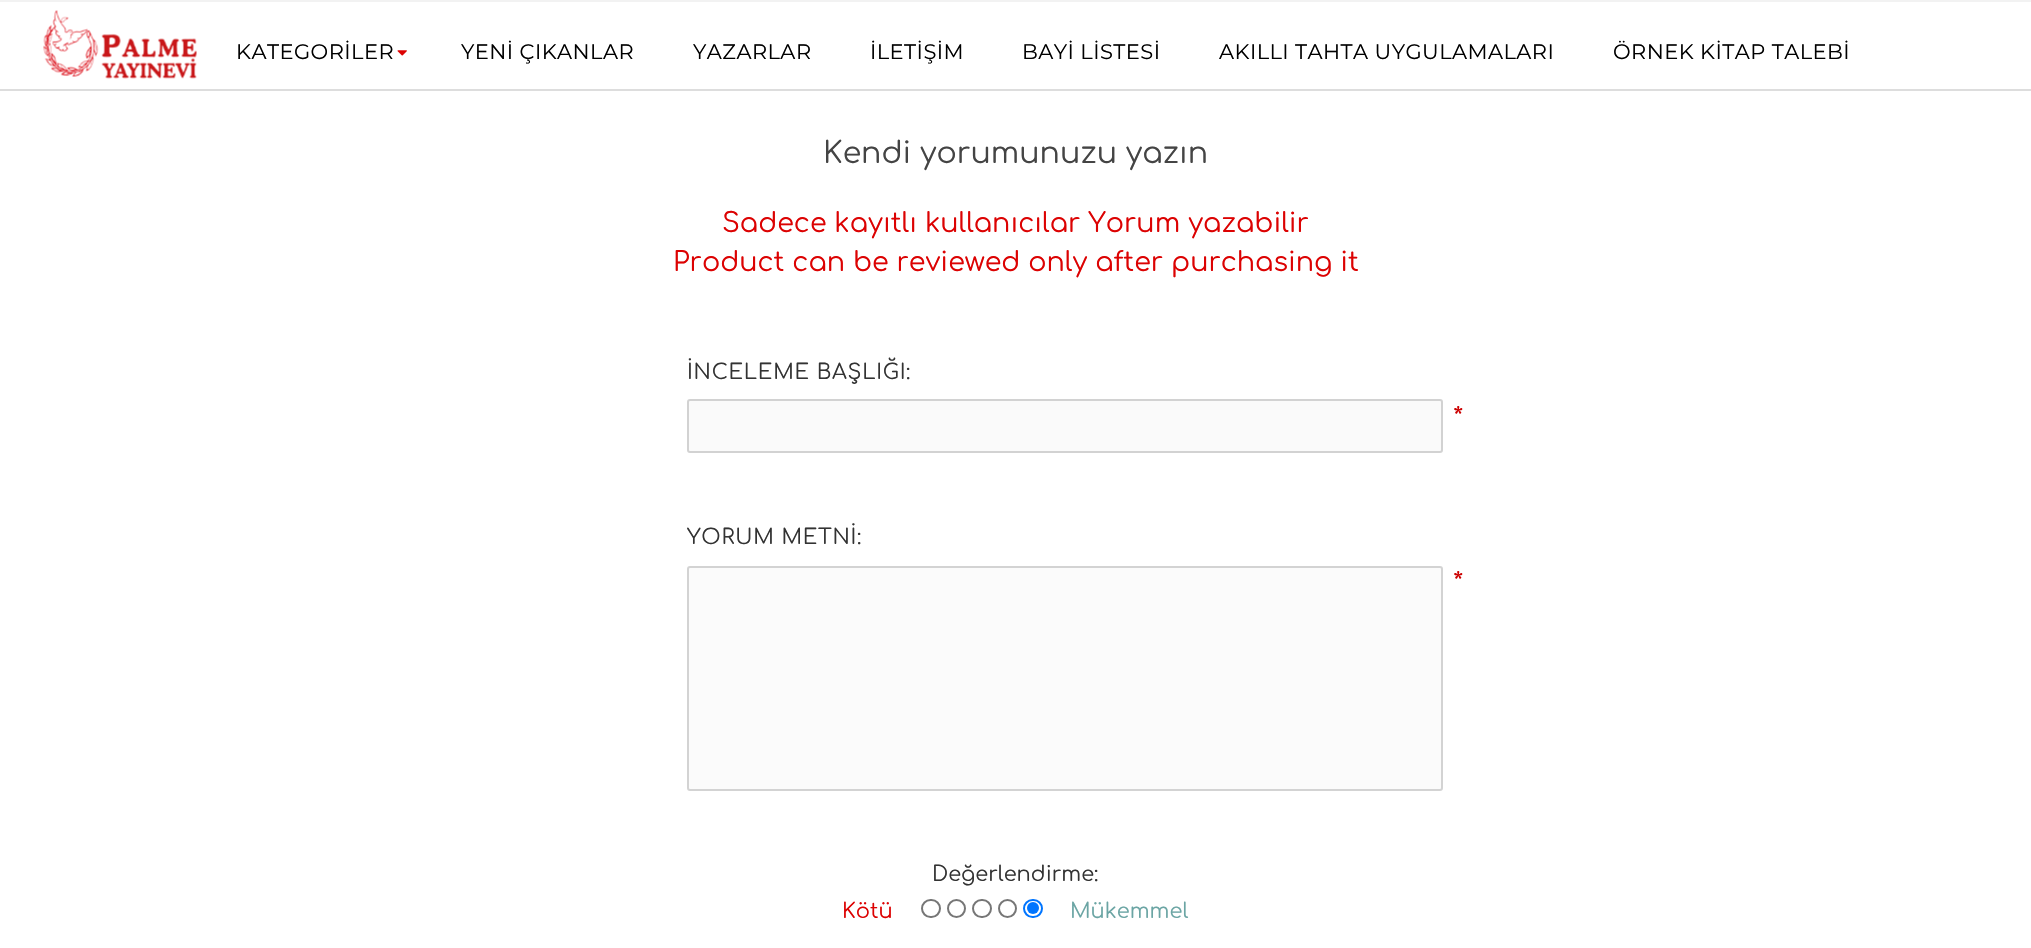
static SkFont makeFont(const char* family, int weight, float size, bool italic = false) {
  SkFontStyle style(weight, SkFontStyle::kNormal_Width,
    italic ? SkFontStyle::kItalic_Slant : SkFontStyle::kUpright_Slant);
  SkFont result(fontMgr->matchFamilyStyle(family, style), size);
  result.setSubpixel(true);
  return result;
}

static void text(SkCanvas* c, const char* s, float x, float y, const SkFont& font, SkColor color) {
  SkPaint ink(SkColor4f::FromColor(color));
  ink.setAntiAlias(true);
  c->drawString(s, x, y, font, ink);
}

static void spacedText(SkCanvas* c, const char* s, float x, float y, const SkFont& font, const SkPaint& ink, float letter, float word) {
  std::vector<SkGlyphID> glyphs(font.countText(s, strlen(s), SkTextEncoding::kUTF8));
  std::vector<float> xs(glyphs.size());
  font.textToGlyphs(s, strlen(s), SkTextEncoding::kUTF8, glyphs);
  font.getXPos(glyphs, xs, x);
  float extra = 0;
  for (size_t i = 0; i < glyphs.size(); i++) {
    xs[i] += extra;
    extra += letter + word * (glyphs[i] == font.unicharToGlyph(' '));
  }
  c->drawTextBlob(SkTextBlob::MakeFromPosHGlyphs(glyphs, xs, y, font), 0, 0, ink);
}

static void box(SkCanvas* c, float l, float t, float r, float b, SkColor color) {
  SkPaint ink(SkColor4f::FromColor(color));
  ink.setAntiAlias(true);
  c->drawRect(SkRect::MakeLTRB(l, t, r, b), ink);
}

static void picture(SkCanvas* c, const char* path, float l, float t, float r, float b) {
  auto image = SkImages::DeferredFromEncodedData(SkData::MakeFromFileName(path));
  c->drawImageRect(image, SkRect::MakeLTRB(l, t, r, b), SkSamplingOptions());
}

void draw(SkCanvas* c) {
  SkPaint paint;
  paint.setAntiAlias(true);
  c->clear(0xffffffff);
  box(c, 0, 0, 2031, 2, 0xfff2f2f2);
  box(c, 0, 89, 2031, 91, 0xffdddddd);
  picture(c, "img_01.png", 43, 10, 197, 79);
  SkFont face1 = makeFont("Montserrat", 400, 21);
  paint.setColor(0xff000000);
  spacedText(c, "KATEGORİLER", 236, 59, face1, paint, 0.45f, 0);
  picture(c, "img_02.png", 397, 50, 407, 56);
  spacedText(c, "YENİ ÇIKANLAR", 461, 59, face1, paint, 0.45f, 0);
  spacedText(c, "YAZARLAR", 693, 59, face1, paint, 0.45f, 0);
  spacedText(c, "İLETİŞİM", 870, 59, face1, paint, 0.45f, 0);
  spacedText(c, "BAYİ LİSTESİ", 1022, 59, face1, paint, 0.45f, 0);
  spacedText(c, "AKILLI TAHTA UYGULAMALARI", 1219, 59, face1, paint, 0.45f, 0);
  spacedText(c, "ÖRNEK KİTAP TALEBİ", 1613, 59, face1, paint, 0.45f, 0);
  SkFont face2 = makeFont("Comfortaa", 400, 30);
  text(c, "Kendi yorumunuzu yazın", 823, 163, face2, 0xff444444);
  SkFont face3 = makeFont("Comfortaa", 400, 27);
  text(c, "Sadece kayıtlı kullanıcılar Yorum yazabilir", 722, 232, face3, 0xffdc0202);
  text(c, "Product can be reviewed only after purchasing it", 673, 271, face3, 0xffdc0202);
  SkFont face4 = makeFont("Comfortaa", 400, 21);
  paint.setColor(0xff333333);
  spacedText(c, "İNCELEME BAŞLIĞI:", 687, 379, face4, paint, 0.75f, 0);
  paint.setColor(0xfffafafa);
  c->drawRoundRect(SkRect::MakeLTRB(688, 400, 1442, 452), 2, 2, paint);
  paint.setStyle(SkPaint::kStroke_Style);
  paint.setStrokeWidth(2);
  paint.setColor(0xffd2d2d2);
  c->drawRoundRect(SkRect::MakeLTRB(688, 400, 1442, 452), 2, 2, paint);
  text(c, "*", 1453, 427, face3, 0xffcc0000);
  paint.setStyle(SkPaint::kFill_Style);
  paint.setColor(0xff333333);
  spacedText(c, "YORUM METNİ:", 687, 544, face4, paint, 0.75f, 0);
  paint.setColor(0xfffbfbfb);
  c->drawRoundRect(SkRect::MakeLTRB(688, 567, 1442, 790), 2, 2, paint);
  paint.setStyle(SkPaint::kStroke_Style);
  paint.setColor(0xffd3d3d3);
  c->drawRoundRect(SkRect::MakeLTRB(688, 567, 1442, 790), 2, 2, paint);
  text(c, "*", 1453, 592, face3, 0xffcc0000);
  text(c, "Değerlendirme:", 932, 881, face4, 0xff333333);
  text(c, "Kötü", 842, 918, face4, 0xffdc0202);
  paint.setColor(0xff767676);
  c->drawRoundRect(SkRect::MakeLTRB(922, 900, 940, 917), 8.5f, 8.5f, paint);
  c->drawCircle(956.5f, 908.5f, 8.5f, paint);
  c->drawRoundRect(SkRect::MakeLTRB(973, 900, 991, 917), 8.5f, 8.5f, paint);
  c->drawCircle(1007.5f, 908.5f, 8.5f, paint);
  paint.setColor(0xff0075ff);
  c->drawRoundRect(SkRect::MakeLTRB(1024, 900, 1042, 917), 8.5f, 8.5f, paint);
  paint.setStyle(SkPaint::kFill_Style);
  c->drawCircle(1033, 908, 6, paint);
  text(c, "Mükemmel", 1070, 918, face4, 0xff6ba5a4);
}
